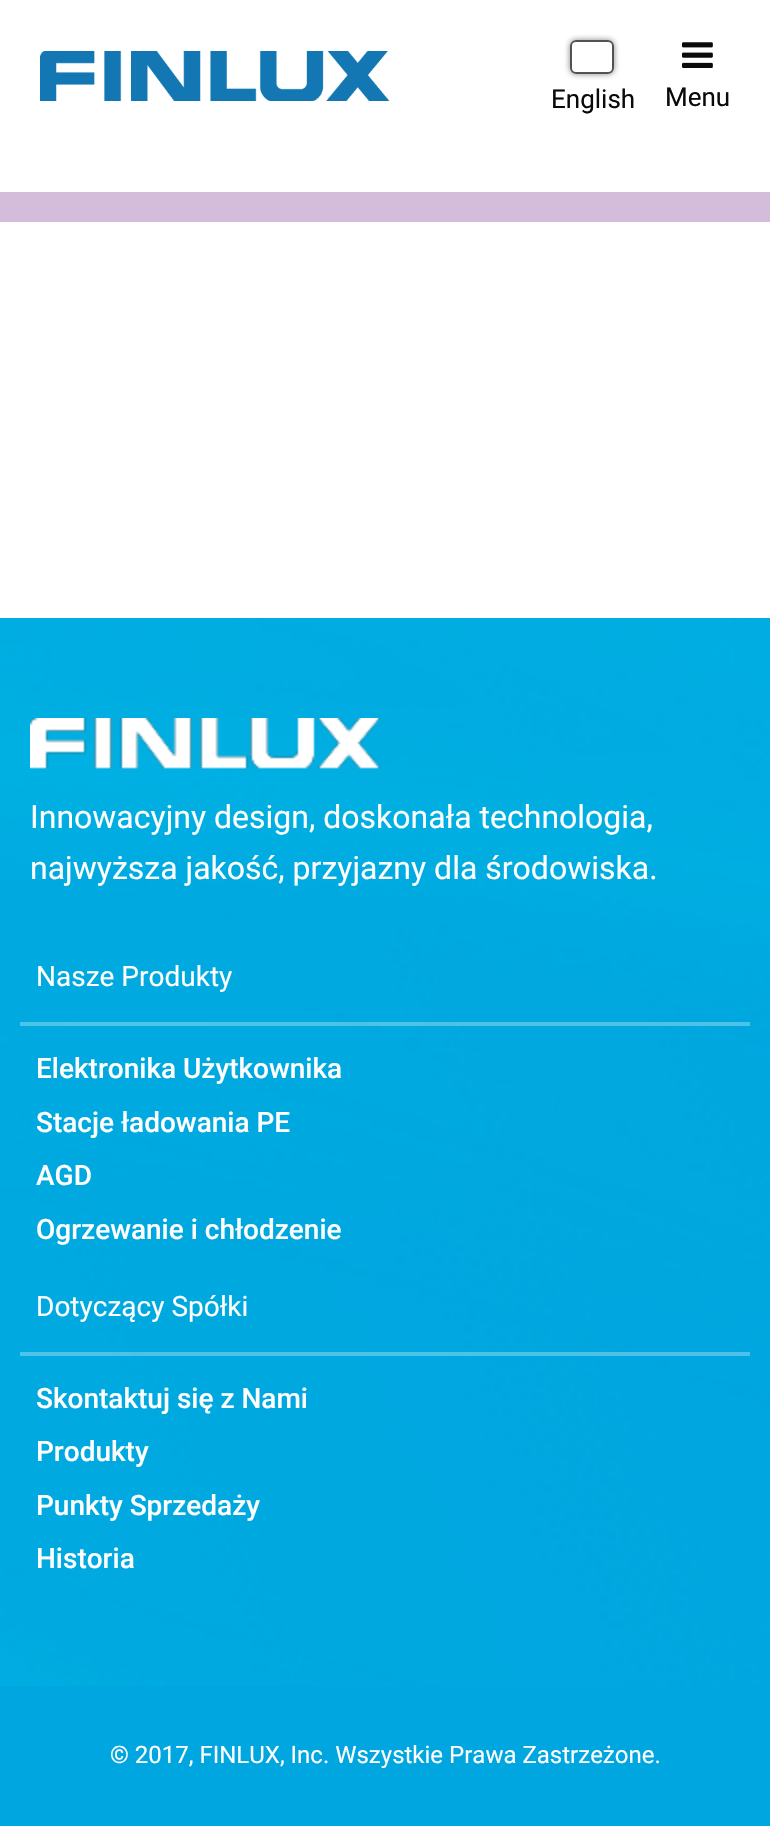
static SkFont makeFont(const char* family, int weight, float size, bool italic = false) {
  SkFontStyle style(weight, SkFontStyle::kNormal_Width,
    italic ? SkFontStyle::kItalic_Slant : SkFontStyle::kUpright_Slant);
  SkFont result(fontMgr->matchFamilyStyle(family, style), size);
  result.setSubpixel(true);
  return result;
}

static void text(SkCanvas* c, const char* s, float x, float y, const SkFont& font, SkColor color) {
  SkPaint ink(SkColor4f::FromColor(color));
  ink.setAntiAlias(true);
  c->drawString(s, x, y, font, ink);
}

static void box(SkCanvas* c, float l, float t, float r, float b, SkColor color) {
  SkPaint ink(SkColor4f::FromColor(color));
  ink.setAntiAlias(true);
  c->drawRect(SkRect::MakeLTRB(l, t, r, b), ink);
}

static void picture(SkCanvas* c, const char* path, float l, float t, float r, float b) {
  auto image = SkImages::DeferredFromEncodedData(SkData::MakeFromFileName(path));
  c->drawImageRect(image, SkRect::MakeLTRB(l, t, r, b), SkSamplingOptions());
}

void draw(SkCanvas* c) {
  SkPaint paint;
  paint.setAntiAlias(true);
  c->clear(0xffffffff);
  picture(c, "img_01.png", 40, 51, 390, 101);
  c->save();
  c->clipPath(SkPathBuilder(SkPathFillType::kEvenOdd).moveTo(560, 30).lineTo(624, 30).lineTo(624, 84).lineTo(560, 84).close().moveTo(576, 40).lineTo(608, 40).cubicTo(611.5f, 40, 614, 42.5f, 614, 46).lineTo(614, 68).cubicTo(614, 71.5f, 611.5f, 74, 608, 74).lineTo(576, 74).cubicTo(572.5f, 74, 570, 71.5f, 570, 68).lineTo(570, 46).cubicTo(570, 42.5f, 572.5f, 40, 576, 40).close().detach(), true);
  paint.setColor(0x800a0a0a);
  paint.setMaskFilter(SkMaskFilter::MakeBlur(kNormal_SkBlurStyle, 3));
  c->drawRoundRect(SkRect::MakeLTRB(570, 40, 614, 74), 6, 6, paint);
  paint.setMaskFilter(nullptr);
  c->restore();
  paint.setStyle(SkPaint::kStroke_Style);
  paint.setStrokeWidth(2);
  paint.setColor(0xb30a0a0a);
  c->drawRoundRect(SkRect::MakeLTRB(571, 41, 613, 73), 5, 5, paint);
  SkFont face1 = makeFont("Roboto", 400, 26);
  text(c, "English", 551, 108, face1, 0xff0a0a0a);
  picture(c, "img_02.png", 682, 42, 713, 68);
  text(c, "Menu", 665, 106, face1, 0xff0a0a0a);
  box(c, 0, 192, 770, 222, 0xffd4bdda);
  picture(c, "img_03.png", 0, 618, 770, 1686);
  picture(c, "img_04.png", 30, 718, 381, 769);
  SkFont face2 = makeFont("Roboto", 400, 32);
  text(c, "Innowacyjny design, doskonała technologia,", 30, 828, face2, 0xfffefefe);
  text(c, "najwyższa jakość, przyjazny dla środowiska.", 30, 879, face2, 0xfffefefe);
  box(c, 20, 1022, 750, 1026, 0x4dfefefe);
  SkFont face3 = makeFont("Roboto", 400, 28);
  text(c, "Nasze Produkty", 36, 986, face3, 0xfffefefe);
  SkFont face4 = makeFont("Roboto", 500, 28);
  text(c, "Elektronika Użytkownika", 36, 1078, face4, 0xfffefefe);
  text(c, "Stacje ładowania PE", 36, 1132, face4, 0xfffefefe);
  text(c, "AGD", 36, 1185, face4, 0xfffefefe);
  text(c, "Ogrzewanie i chłodzenie", 36, 1239, face4, 0xfffefefe);
  box(c, 20, 1352, 750, 1356, 0x4dfefefe);
  text(c, "Dotyczący Spółki", 36, 1316, face3, 0xfffefefe);
  text(c, "Skontaktuj się z Nami", 36, 1408, face4, 0xfffefefe);
  text(c, "Produkty", 36, 1461, face4, 0xfffefefe);
  text(c, "Punkty Sprzedaży", 36, 1515, face4, 0xfffefefe);
  text(c, "Historia", 36, 1568, face4, 0xfffefefe);
  box(c, 0, 1686, 770, 1826, 0xff00a6df);
  SkFont face5 = makeFont("Roboto", 400, 24);
  text(c, "© 2017, FINLUX, Inc. Wszystkie Prawa Zastrzeżone.", 110, 1763, face5, 0xfffefefe);
}
